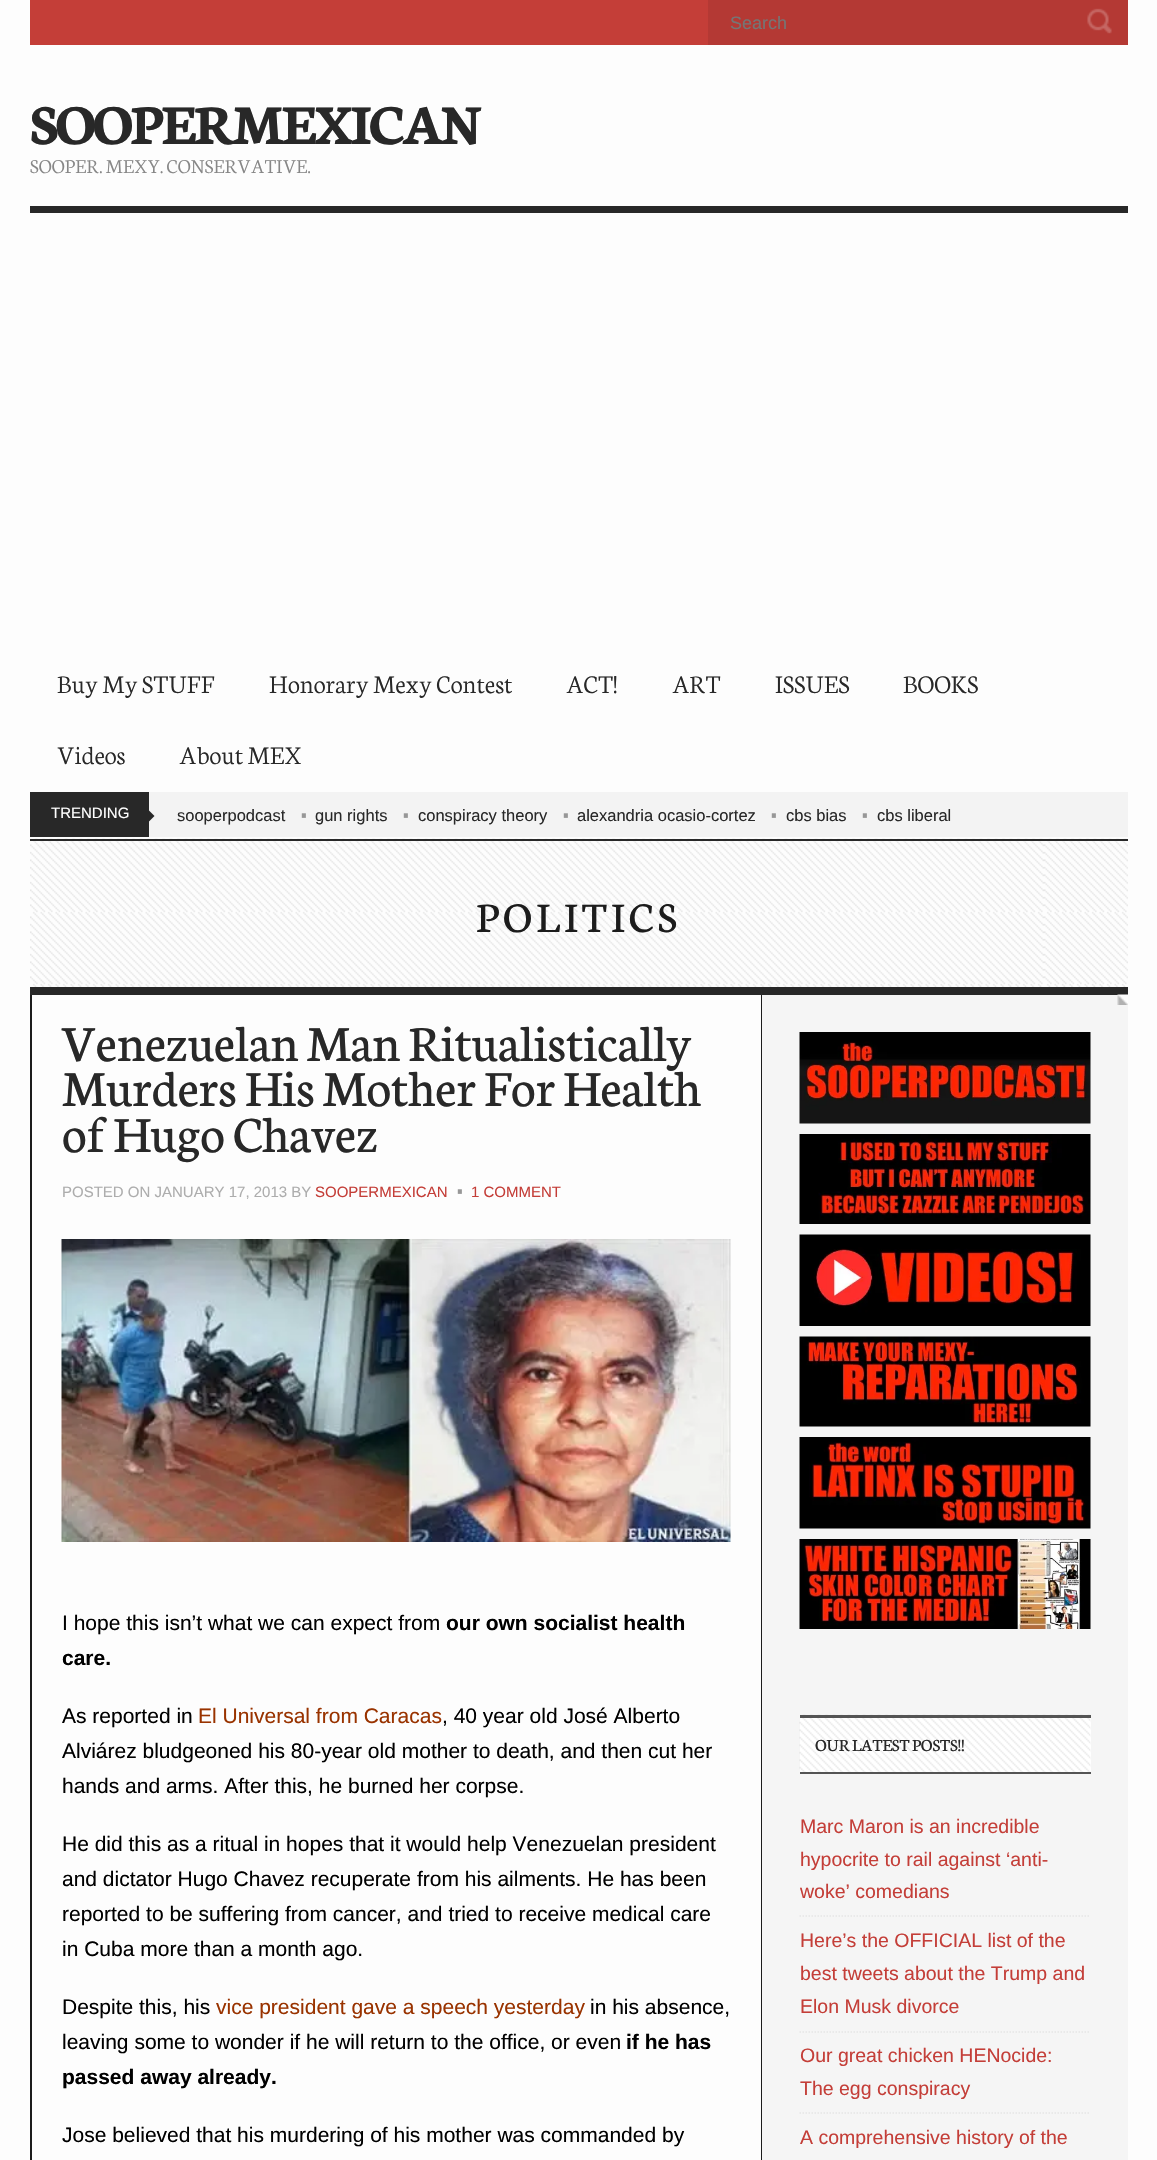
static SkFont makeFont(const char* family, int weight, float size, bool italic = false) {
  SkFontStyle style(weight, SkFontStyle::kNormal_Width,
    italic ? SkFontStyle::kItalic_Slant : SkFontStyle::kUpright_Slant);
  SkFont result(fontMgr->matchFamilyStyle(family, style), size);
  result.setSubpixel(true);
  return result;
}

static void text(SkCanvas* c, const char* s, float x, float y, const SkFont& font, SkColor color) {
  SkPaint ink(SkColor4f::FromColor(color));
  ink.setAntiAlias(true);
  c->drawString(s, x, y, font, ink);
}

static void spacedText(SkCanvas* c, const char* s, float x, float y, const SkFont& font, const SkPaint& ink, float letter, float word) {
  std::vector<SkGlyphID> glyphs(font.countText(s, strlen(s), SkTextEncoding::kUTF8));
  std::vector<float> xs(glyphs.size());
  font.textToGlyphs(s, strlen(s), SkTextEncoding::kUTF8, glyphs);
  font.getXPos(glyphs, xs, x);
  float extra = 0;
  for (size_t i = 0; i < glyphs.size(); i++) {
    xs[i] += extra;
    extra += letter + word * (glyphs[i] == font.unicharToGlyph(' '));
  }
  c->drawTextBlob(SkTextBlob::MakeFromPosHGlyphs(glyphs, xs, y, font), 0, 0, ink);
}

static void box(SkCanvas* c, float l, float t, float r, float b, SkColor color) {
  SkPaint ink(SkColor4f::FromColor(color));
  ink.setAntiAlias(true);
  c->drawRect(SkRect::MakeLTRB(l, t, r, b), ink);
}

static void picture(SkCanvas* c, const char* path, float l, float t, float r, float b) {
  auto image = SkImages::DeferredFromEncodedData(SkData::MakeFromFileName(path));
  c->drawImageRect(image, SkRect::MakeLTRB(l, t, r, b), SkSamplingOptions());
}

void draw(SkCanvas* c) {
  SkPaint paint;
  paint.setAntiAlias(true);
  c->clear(0xfffdfdfd);
  box(c, 30, 0, 708, 45, 0xffc43e38);
  box(c, 708, 0, 1128, 45, 0xffb43934);
  SkFont face1 = makeFont("Liberation Sans", 400, 18);
  text(c, "Search", 730, 29, face1, 0xff757575);
  picture(c, "img_01.png", 1087, 8, 1112, 34);
  box(c, 30, 206, 1128, 213, 0xff282828);
  SkFont face2 = makeFont("Neuton", 700, 60);
  paint.setColor(0xff282828);
  spacedText(c, "SOOPERMEXICAN", 30, 144, face2, paint, -3.6f, 0);
  SkFont face3 = makeFont("Neuton", 300, 21);
  text(c, "SOOPER. MEXY. CONSERVATIVE.", 30, 173, face3, 0xff878787);
  SkFont face4 = makeFont("Neuton", 300, 27);
  text(c, "Buy My STUFF", 57, 693, face4, 0xff282828);
  text(c, "Honorary Mexy Contest", 269, 693, face4, 0xff282828);
  text(c, "ACT!", 566, 693, face4, 0xff282828);
  text(c, "ART", 672, 693, face4, 0xff282828);
  text(c, "ISSUES", 775, 693, face4, 0xff282828);
  text(c, "BOOKS", 903, 693, face4, 0xff282828);
  text(c, "Videos", 57, 764, face4, 0xff282828);
  text(c, "About MEX", 179, 764, face4, 0xff282828);
  box(c, 149, 792, 1128, 837, 0xfff3f3f3);
  box(c, 30, 792, 149, 837, 0xff282828);
  SkFont face5 = makeFont("Liberation Sans", 400, 15);
  text(c, "TRENDING", 51, 818, face5, 0xffffffff);
  c->drawPath(SkPathBuilder().moveTo(148.5f, 822).lineTo(148.5f, 810).lineTo(154.5f, 816).close().detach(), paint);
  SkFont face6 = makeFont("Liberation Sans", 400, 16.5f);
  text(c, "sooperpodcast", 177, 821, face6, 0xff282828);
  SkFont face7 = makeFont("Liberation Sans", 400, 42);
  text(c, "∙", 298, 827, face7, 0xff979797);
  text(c, "gun rights", 315, 821, face6, 0xff282828);
  text(c, "∙", 400, 827, face7, 0xff979797);
  text(c, "conspiracy theory", 418, 821, face6, 0xff282828);
  text(c, "∙", 560, 827, face7, 0xff979797);
  text(c, "alexandria ocasio-cortez", 577, 821, face6, 0xff282828);
  text(c, "∙", 768, 827, face7, 0xff979797);
  text(c, "cbs bias", 786, 821, face6, 0xff282828);
  text(c, "∙", 859, 827, face7, 0xff979797);
  text(c, "cbs liberal", 877, 821, face6, 0xff282828);
  picture(c, "img_02.png", 30, 838, 1128, 987);
  box(c, 30, 839, 1128, 841, 0xff282828);
  box(c, 30, 987, 1128, 995, 0xff282828);
  SkFont face8 = makeFont("Neuton", 400, 45);
  paint.setColor(0xff1c1c1c);
  spacedText(c, "POLITICS", 476, 932, face8, paint, 4.5f, 0);
  box(c, 761, 995, 762, 2160, 0xff1c1c1c);
  box(c, 30, 995, 32, 2160, 0xff1c1c1c);
  SkFont face9 = makeFont("Neuton", 400, 54);
  text(c, "Venezuelan Man Ritualistically", 62, 1061, face9, 0xff282828);
  text(c, "Murders His Mother For Health", 62, 1106, face9, 0xff282828);
  text(c, "of Hugo Chavez", 62, 1152, face9, 0xff282828);
  text(c, "POSTED ON JANUARY 17, 2013 BY", 62, 1197, face5, 0xffadadad);
  text(c, "SOOPERMEXICAN", 315, 1197, face5, 0xffc43e38);
  text(c, "∙", 454, 1203, face7, 0xff979797);
  text(c, "1 COMMENT", 471, 1197, face5, 0xffc43e38);
  picture(c, "img_03.png", 61, 1239, 731, 1542);
  SkFont face10 = makeFont("Liberation Sans", 400, 21);
  text(c, "I hope this isn’t what we can expect from", 62, 1630, face10, 0xff000000);
  SkFont face11 = makeFont("Liberation Sans", 700, 21);
  text(c, "our own socialist health", 446, 1630, face11, 0xff000000);
  text(c, "care.", 62, 1665, face11, 0xff000000);
  text(c, "As reported in", 62, 1723, face10, 0xff000000);
  text(c, "El Universal from Caracas", 198, 1723, face10, 0xff993300);
  text(c, ", 40 year old José Alberto", 442, 1723, face10, 0xff000000);
  text(c, "Alviárez bludgeoned his 80-year old mother to death, and then cut her", 62, 1758, face10, 0xff000000);
  text(c, "hands and arms. After this, he burned her corpse.", 62, 1793, face10, 0xff000000);
  text(c, "He did this as a ritual in hopes that it would help Venezuelan president", 62, 1851, face10, 0xff000000);
  text(c, "and dictator Hugo Chavez recuperate from his ailments. He has been", 62, 1886, face10, 0xff000000);
  text(c, "reported to be suffering from cancer, and tried to receive medical care", 62, 1921, face10, 0xff000000);
  text(c, "in Cuba more than a month ago.", 62, 1956, face10, 0xff000000);
  text(c, "Despite this, his", 62, 2014, face10, 0xff000000);
  text(c, "vice president gave a speech yesterday", 216, 2014, face10, 0xff993300);
  text(c, "in his absence,", 590, 2014, face10, 0xff000000);
  text(c, "leaving some to wonder if he will return to the office, or even", 62, 2049, face10, 0xff000000);
  text(c, "if he has", 626, 2049, face11, 0xff000000);
  text(c, "passed away already.", 62, 2084, face11, 0xff000000);
  text(c, "Jose believed that his murdering of his mother was commanded by", 62, 2142, face10, 0xff000000);
  box(c, 762, 995, 1128, 2160, 0xfff5f5f5);
  picture(c, "img_04.png", 1117, 994, 1128, 1005);
  picture(c, "img_05.png", 799, 1032, 1091, 1124);
  picture(c, "img_06.png", 799, 1134, 1091, 1224);
  picture(c, "img_07.png", 799, 1234, 1091, 1326);
  picture(c, "img_08.png", 799, 1336, 1091, 1427);
  picture(c, "img_09.png", 799, 1437, 1091, 1529);
  picture(c, "img_10.png", 799, 1539, 1091, 1629);
  box(c, 800, 1718, 1091, 1772, 0xffffffff);
  picture(c, "img_11.png", 799, 1714, 1091, 1772);
  box(c, 800, 1715, 1091, 1718, 0xff545454);
  box(c, 800, 1772, 1091, 1774, 0xff545454);
  SkFont face12 = makeFont("Neuton", 400, 18);
  text(c, "OUR LATEST POSTS!!", 815, 1751, face12, 0xff282828);
  paint.setStyle(SkPaint::kStroke_Style);
  paint.setStrokeWidth(1.5f);
  paint.setColor(0xffe5e5e5);
  paint.setPathEffect(SkDashPathEffect::Make({{1.5f, 1.5f}}, 0));
  c->drawPath(SkPathBuilder().moveTo(799.5f, 1916).lineTo(1090.5f, 1916).detach(), paint);
  paint.setPathEffect(nullptr);
  SkFont face13 = makeFont("Liberation Sans", 400, 19.5f);
  text(c, "Marc Maron is an incredible", 800, 1833, face13, 0xffc43e38);
  text(c, "hypocrite to rail against ‘anti-", 800, 1866, face13, 0xffc43e38);
  text(c, "woke’ comedians", 800, 1898, face13, 0xffc43e38);
  paint.setPathEffect(SkDashPathEffect::Make({{1.5f, 1.5f}}, 0));
  c->drawPath(SkPathBuilder().moveTo(799.5f, 2032).lineTo(1090.5f, 2032).detach(), paint);
  paint.setPathEffect(nullptr);
  text(c, "Here’s the OFFICIAL list of the", 800, 1947, face13, 0xffc43e38);
  text(c, "best tweets about the Trump and", 800, 1980, face13, 0xffc43e38);
  text(c, "Elon Musk divorce", 800, 2013, face13, 0xffc43e38);
  paint.setPathEffect(SkDashPathEffect::Make({{1.5f, 1.5f}}, 0));
  c->drawPath(SkPathBuilder().moveTo(799.5f, 2113).lineTo(1090.5f, 2113).detach(), paint);
  paint.setPathEffect(nullptr);
  text(c, "Our great chicken HENocide:", 800, 2062, face13, 0xffc43e38);
  text(c, "The egg conspiracy", 800, 2095, face13, 0xffc43e38);
  text(c, "A comprehensive history of the", 800, 2144, face13, 0xffc43e38);
}
